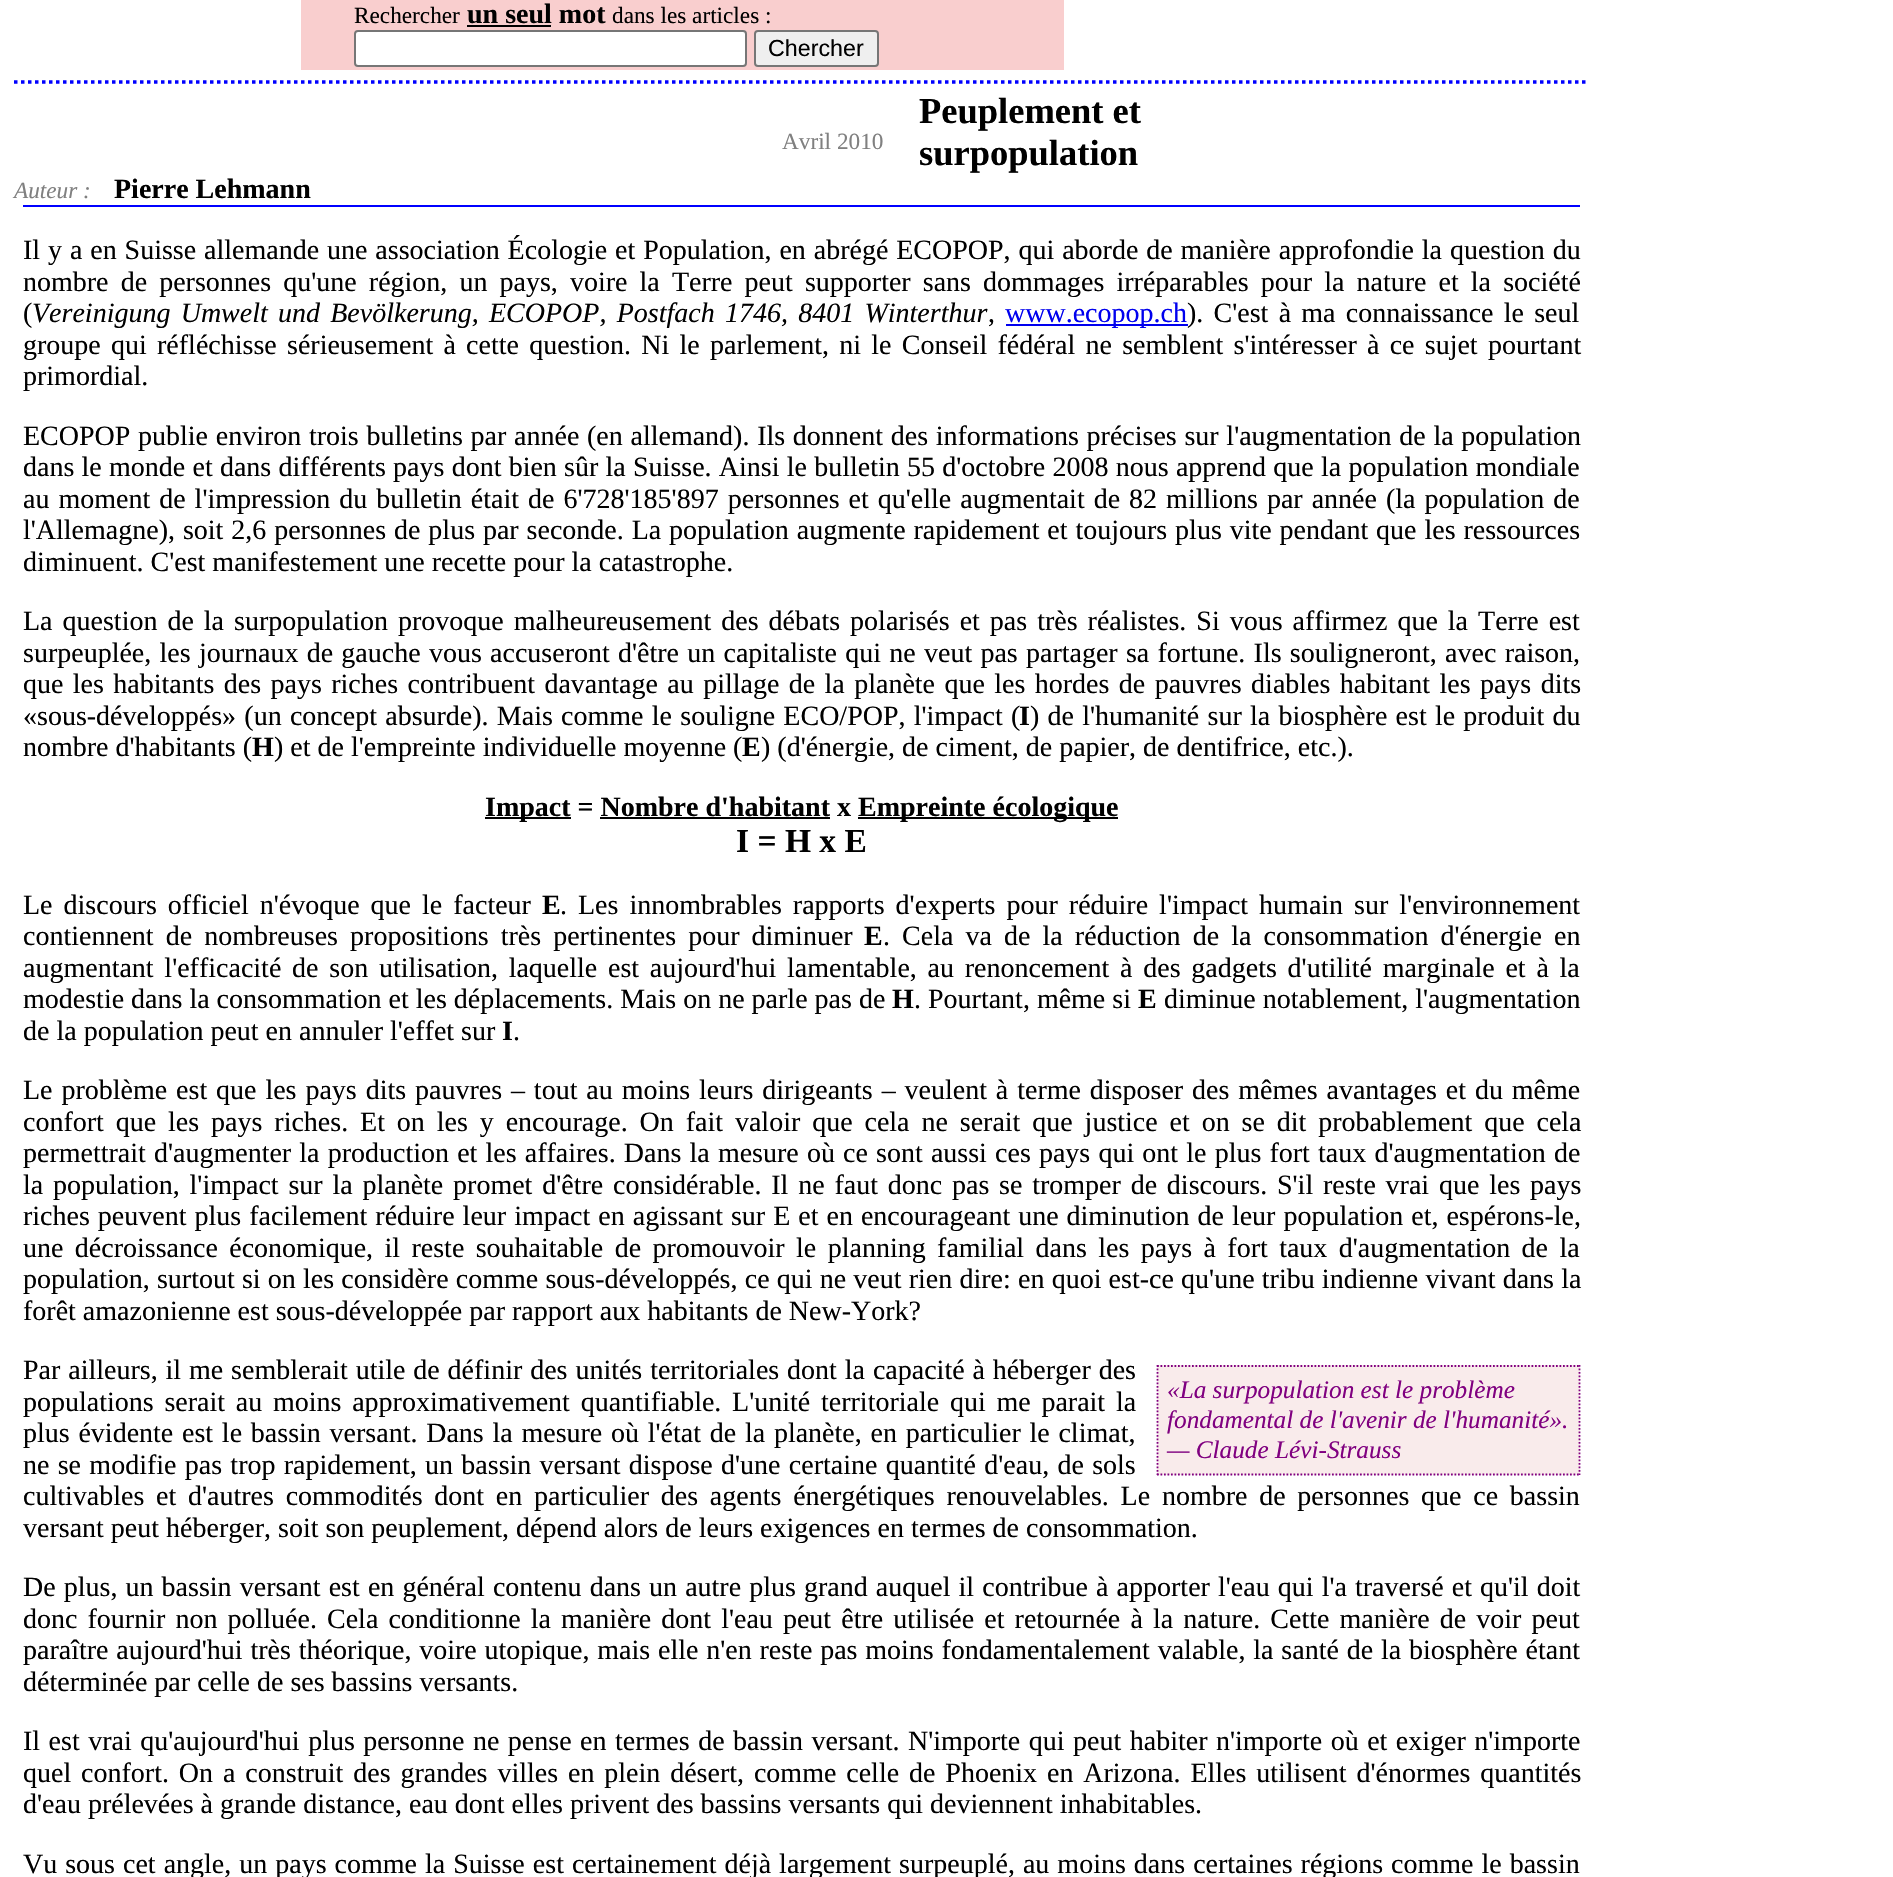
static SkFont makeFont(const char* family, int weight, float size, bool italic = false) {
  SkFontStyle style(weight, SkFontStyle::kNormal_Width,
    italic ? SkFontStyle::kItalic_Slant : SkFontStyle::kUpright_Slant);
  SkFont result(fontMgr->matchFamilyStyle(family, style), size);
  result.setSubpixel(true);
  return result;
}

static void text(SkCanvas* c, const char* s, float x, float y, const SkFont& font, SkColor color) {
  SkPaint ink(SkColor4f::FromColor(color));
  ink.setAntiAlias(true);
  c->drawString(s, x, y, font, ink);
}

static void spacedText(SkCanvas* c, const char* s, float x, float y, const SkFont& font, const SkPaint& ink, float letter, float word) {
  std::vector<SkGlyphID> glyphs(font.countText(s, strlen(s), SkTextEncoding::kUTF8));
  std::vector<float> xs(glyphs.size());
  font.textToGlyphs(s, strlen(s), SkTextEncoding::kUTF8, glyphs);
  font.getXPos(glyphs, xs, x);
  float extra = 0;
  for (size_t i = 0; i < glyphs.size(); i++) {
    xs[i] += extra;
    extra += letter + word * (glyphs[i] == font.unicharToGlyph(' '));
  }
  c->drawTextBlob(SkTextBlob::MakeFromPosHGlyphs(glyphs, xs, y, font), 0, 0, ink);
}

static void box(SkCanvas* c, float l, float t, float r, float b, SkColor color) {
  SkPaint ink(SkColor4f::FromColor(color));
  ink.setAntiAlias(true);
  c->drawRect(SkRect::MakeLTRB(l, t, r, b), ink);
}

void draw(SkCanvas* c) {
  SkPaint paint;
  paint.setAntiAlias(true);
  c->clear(0xffffffff);
  box(c, 301, 0, 1064, 70, 0xfff9cece);
  SkFont face1 = makeFont("Liberation Serif", 400, 23.25f);
  text(c, "Rechercher", 354, 23, face1, 0xff000000);
  SkFont face2 = makeFont("Liberation Serif", 700, 28);
  text(c, "un seul mot", 467, 23, face2, 0xff000000);
  box(c, 467, 25, 551, 27, 0xff000000);
  text(c, "dans les articles :", 612, 23, face1, 0xff000000);
  paint.setColor(0xffffffff);
  c->drawRoundRect(SkRect::MakeLTRB(355, 31, 746, 66), 3, 3, paint);
  paint.setStyle(SkPaint::kStroke_Style);
  paint.setStrokeWidth(2);
  paint.setColor(0xff767676);
  c->drawRoundRect(SkRect::MakeLTRB(355, 31, 746, 66), 3, 3, paint);
  paint.setStyle(SkPaint::kFill_Style);
  paint.setColor(0xffefefef);
  c->drawRoundRect(SkRect::MakeLTRB(755, 31, 878, 66), 3, 3, paint);
  paint.setStyle(SkPaint::kStroke_Style);
  paint.setColor(0xff767676);
  c->drawRoundRect(SkRect::MakeLTRB(755, 31, 878, 66), 3, 3, paint);
  SkFont face3 = makeFont("Liberation Sans", 400, 23.25f);
  text(c, "Chercher", 768, 56, face3, 0xff000000);
  paint.setStrokeWidth(3.5f);
  paint.setColor(0xff0000ff);
  paint.setPathEffect(SkDashPathEffect::Make({{3.5f, 3.5f}}, 0));
  c->drawPath(SkPathBuilder().moveTo(14, 82).lineTo(1589, 82).detach(), paint);
  paint.setPathEffect(nullptr);
  SkFont face4 = makeFont("Liberation Serif", 700, 36.5f);
  text(c, "Peuplement et", 919, 123, face4, 0xff000000);
  text(c, "Avril 2010", 782, 149, face1, 0xff808080);
  text(c, "surpopulation", 919, 165, face4, 0xff000000);
  SkFont face5 = makeFont("Liberation Serif", 400, 23.25f, true);
  text(c, "Auteur :", 14, 198, face5, 0xff808080);
  text(c, "Pierre Lehmann", 114, 198, face2, 0xff000000);
  box(c, 23, 205, 1580, 207, 0xff0000ff);
  SkFont face6 = makeFont("Liberation Serif", 400, 28);
  paint.setStyle(SkPaint::kFill_Style);
  paint.setColor(0xff000000);
  spacedText(c, "Il y a en Suisse allemande une association Écologie et Population, en abrégé ECOPOP, qui aborde de manière approfondie la question du", 23, 259, face6, paint, 0, 0.9f);
  spacedText(c, "nombre de personnes qu'une région, un pays, voire la Terre peut supporter sans dommages irréparables pour la nature et la société", 23, 291, face6, paint, 0, 5.1f);
  text(c, "(", 23, 322, face6, 0xff000000);
  SkFont face7 = makeFont("Liberation Serif", 400, 28, true);
  spacedText(c, "Vereinigung Umwelt und Bevölkerung, ECOPOP, Postfach 1746, 8401 Winterthur", 32, 322, face7, paint, 0, 3.25f);
  text(c, ",", 988, 322, face6, 0xff000000);
  box(c, 1006, 324, 1188, 326, 0xff0000ee);
  text(c, "www.ecopop.ch", 1005, 322, face6, 0xff0000ee);
  spacedText(c, "). C'est à ma connaissance le seul", 1187, 322, face6, paint, 0, 3.25f);
  spacedText(c, "groupe qui réfléchisse sérieusement à cette question. Ni le parlement, ni le Conseil fédéral ne semblent s'intéresser à ce sujet pourtant", 23, 354, face6, paint, 0, 3.25f);
  text(c, "primordial.", 23, 385, face6, 0xff000000);
  spacedText(c, "ECOPOP publie environ trois bulletins par année (en allemand). Ils donnent des informations précises sur l'augmentation de la population", 23, 445, face6, paint, 0, 0.7f);
  spacedText(c, "dans le monde et dans différents pays dont bien sûr la Suisse. Ainsi le bulletin 55 d'octobre 2008 nous apprend que la population mondiale", 23, 476, face6, paint, 0, 0.25f);
  spacedText(c, "au moment de l'impression du bulletin était de 6'728'185'897 personnes et qu'elle augmentait de 82 millions par année (la population de", 23, 508, face6, paint, 0, 2);
  spacedText(c, "l'Allemagne), soit 2,6 personnes de plus par seconde. La population augmente rapidement et toujours plus vite pendant que les ressources", 23, 539, face6, paint, 0, 0.9f);
  text(c, "diminuent. C'est manifestement une recette pour la catastrophe.", 23, 571, face6, 0xff000000);
  spacedText(c, "La question de la surpopulation provoque malheureusement des débats polarisés et pas très réalistes. Si vous affirmez que la Terre est", 23, 630, face6, paint, 0, 3);
  spacedText(c, "surpeuplée, les journaux de gauche vous accuseront d'être un capitaliste qui ne veut pas partager sa fortune. Ils souligneront, avec raison,", 23, 662, face6, paint, 0, 1.25f);
  spacedText(c, "que les habitants des pays riches contribuent davantage au pillage de la planète que les hordes de pauvres diables habitant les pays dits", 23, 693, face6, paint, 0, 2.4f);
  spacedText(c, "«sous-développés» (un concept absurde). Mais comme le souligne ECO/POP, l'impact (", 23, 725, face6, paint, 0, 1.25f);
  text(c, "I", 1019, 725, face2, 0xff000000);
  spacedText(c, ") de l'humanité sur la biosphère est le produit du", 1030, 725, face6, paint, 0, 1.25f);
  text(c, "nombre d'habitants (", 23, 756, face6, 0xff000000);
  text(c, "H", 252, 756, face2, 0xff000000);
  text(c, ") et de l'empreinte individuelle moyenne (", 274, 756, face6, 0xff000000);
  text(c, "E", 742, 756, face2, 0xff000000);
  text(c, ") (d'énergie, de ciment, de papier, de dentifrice, etc.).", 761, 756, face6, 0xff000000);
  box(c, 485, 817, 571, 819, 0xff000000);
  text(c, "Impact = Nombre d'habitant x", 485, 816, face2, 0xff000000);
  box(c, 600, 817, 830, 819, 0xff000000);
  box(c, 858, 817, 1118, 819, 0xff000000);
  text(c, "Empreinte écologique", 858, 816, face2, 0xff000000);
  SkFont face8 = makeFont("Liberation Serif", 700, 33.5f);
  text(c, "I = H x E", 736, 852, face8, 0xff000000);
  spacedText(c, "Le discours officiel n'évoque que le facteur", 23, 914, face6, paint, 0, 4);
  text(c, "E", 542, 914, face2, 0xff000000);
  spacedText(c, ". Les innombrables rapports d'experts pour réduire l'impact humain sur l'environnement", 560, 914, face6, paint, 0, 4);
  spacedText(c, "contiennent de nombreuses propositions très pertinentes pour diminuer", 23, 945, face6, paint, 0, 5.1f);
  text(c, "E", 864, 945, face2, 0xff000000);
  spacedText(c, ". Cela va de la réduction de la consommation d'énergie en", 883, 945, face6, paint, 0, 5.1f);
  spacedText(c, "augmentant l'efficacité de son utilisation, laquelle est aujourd'hui lamentable, au renoncement à des gadgets d'utilité marginale et à la", 23, 977, face6, paint, 0, 3.75f);
  text(c, "modestie dans la consommation et les déplacements. Mais on ne parle pas de", 23, 1008, face6, 0xff000000);
  text(c, "H", 892, 1008, face2, 0xff000000);
  text(c, ". Pourtant, même si", 914, 1008, face6, 0xff000000);
  text(c, "E", 1138, 1008, face2, 0xff000000);
  text(c, "diminue notablement, l'augmentation", 1164, 1008, face6, 0xff000000);
  text(c, "de la population peut en annuler l'effet sur", 23, 1040, face6, 0xff000000);
  text(c, "I", 502, 1040, face2, 0xff000000);
  text(c, ".", 513, 1040, face6, 0xff000000);
  spacedText(c, "Le problème est que les pays dits pauvres – tout au moins leurs dirigeants – veulent à terme disposer des mêmes avantages et du même", 23, 1099, face6, paint, 0, 1.9f);
  spacedText(c, "confort que les pays riches. Et on les y encourage. On fait valoir que cela ne serait que justice et on se dit probablement que cela", 23, 1131, face6, paint, 0, 4.9f);
  spacedText(c, "permettrait d'augmenter la production et les affaires. Dans la mesure où ce sont aussi ces pays qui ont le plus fort taux d'augmentation de", 23, 1162, face6, paint, 0, 1.15f);
  spacedText(c, "la population, l'impact sur la planète promet d'être considérable. Il ne faut donc pas se tromper de discours. S'il reste vrai que les pays", 23, 1194, face6, paint, 0, 2.8f);
  spacedText(c, "riches peuvent plus facilement réduire leur impact en agissant sur E et en encourageant une diminution de leur population et, espérons-le,", 23, 1225, face6, paint, 0, 1);
  spacedText(c, "une décroissance économique, il reste souhaitable de promouvoir le planning familial dans les pays à fort taux d'augmentation de la", 23, 1257, face6, paint, 0, 4.4f);
  spacedText(c, "population, surtout si on les considère comme sous-développés, ce qui ne veut rien dire: en quoi est-ce qu'une tribu indienne vivant dans la", 23, 1288, face6, paint, 0, 0.2f);
  text(c, "forêt amazonienne est sous-développée par rapport aux habitants de New-York?", 23, 1320, face6, 0xff000000);
  spacedText(c, "Par ailleurs, il me semblerait utile de définir des unités territoriales dont la capacité à héberger des", 23, 1379, face6, paint, 0, 0.9f);
  spacedText(c, "populations serait au moins approximativement quantifiable. L'unité territoriale qui me parait la", 23, 1411, face6, paint, 0, 3.75f);
  spacedText(c, "plus évidente est le bassin versant. Dans la mesure où l'état de la planète, en particulier le climat,", 23, 1442, face6, paint, 0, 1.75f);
  spacedText(c, "ne se modifie pas trop rapidement, un bassin versant dispose d'une certaine quantité d'eau, de sols", 23, 1474, face6, paint, 0, 1.3f);
  spacedText(c, "cultivables et d'autres commodités dont en particulier des agents énergétiques renouvelables. Le nombre de personnes que ce bassin", 23, 1505, face6, paint, 0, 4.75f);
  text(c, "versant peut héberger, soit son peuplement, dépend alors de leurs exigences en termes de consommation.", 23, 1537, face6, 0xff000000);
  box(c, 1157, 1365, 1580, 1475, 0xfff9ebeb);
  paint.setStyle(SkPaint::kStroke_Style);
  paint.setStrokeWidth(1.8f);
  paint.setColor(0xff800080);
  paint.setPathEffect(SkDashPathEffect::Make({{1.75f, 1.75f}}, 0));
  c->drawPath(SkPathBuilder().moveTo(1157, 1366).lineTo(1580, 1366).detach(), paint);
  paint.setPathEffect(nullptr);
  paint.setPathEffect(SkDashPathEffect::Make({{1.75f, 1.75f}}, 0));
  c->drawPath(SkPathBuilder().moveTo(1579.5f, 1365).lineTo(1579.5f, 1475).detach(), paint);
  paint.setPathEffect(nullptr);
  paint.setPathEffect(SkDashPathEffect::Make({{1.75f, 1.75f}}, 0));
  c->drawPath(SkPathBuilder().moveTo(1157, 1474.5f).lineTo(1580, 1474.5f).detach(), paint);
  paint.setPathEffect(nullptr);
  paint.setPathEffect(SkDashPathEffect::Make({{1.75f, 1.75f}}, 0));
  c->drawPath(SkPathBuilder().moveTo(1157.5f, 1365).lineTo(1157.5f, 1475).detach(), paint);
  paint.setPathEffect(nullptr);
  SkFont face9 = makeFont("Liberation Serif", 400, 25.25f, true);
  text(c, "«La surpopulation est le problème", 1167, 1398, face9, 0xff800080);
  text(c, "fondamental de l'avenir de l'humanité».", 1167, 1428, face9, 0xff800080);
  text(c, "— Claude Lévi-Strauss", 1167, 1458, face9, 0xff800080);
  paint.setStyle(SkPaint::kFill_Style);
  paint.setColor(0xff000000);
  spacedText(c, "De plus, un bassin versant est en général contenu dans un autre plus grand auquel il contribue à apporter l'eau qui l'a traversé et qu'il doit", 23, 1596, face6, paint, 0, 1.1f);
  spacedText(c, "donc fournir non polluée. Cela conditionne la manière dont l'eau peut être utilisée et retournée à la nature. Cette manière de voir peut", 23, 1628, face6, paint, 0, 3.1f);
  spacedText(c, "paraître aujourd'hui très théorique, voire utopique, mais elle n'en reste pas moins fondamentalement valable, la santé de la biosphère étant", 23, 1659, face6, paint, 0, 0.8f);
  text(c, "déterminée par celle de ses bassins versants.", 23, 1691, face6, 0xff000000);
  spacedText(c, "Il est vrai qu'aujourd'hui plus personne ne pense en termes de bassin versant. N'importe qui peut habiter n'importe où et exiger n'importe", 23, 1750, face6, paint, 0, 1.5f);
  spacedText(c, "quel confort. On a construit des grandes villes en plein désert, comme celle de Phoenix en Arizona. Elles utilisent d'énormes quantités", 23, 1782, face6, paint, 0, 2.9f);
  text(c, "d'eau prélevées à grande distance, eau dont elles privent des bassins versants qui deviennent inhabitables.", 23, 1813, face6, 0xff000000);
  spacedText(c, "Vu sous cet angle, un pays comme la Suisse est certainement déjà largement surpeuplé, au moins dans certaines régions comme le bassin", 23, 1873, face6, paint, 0, 1);
}
